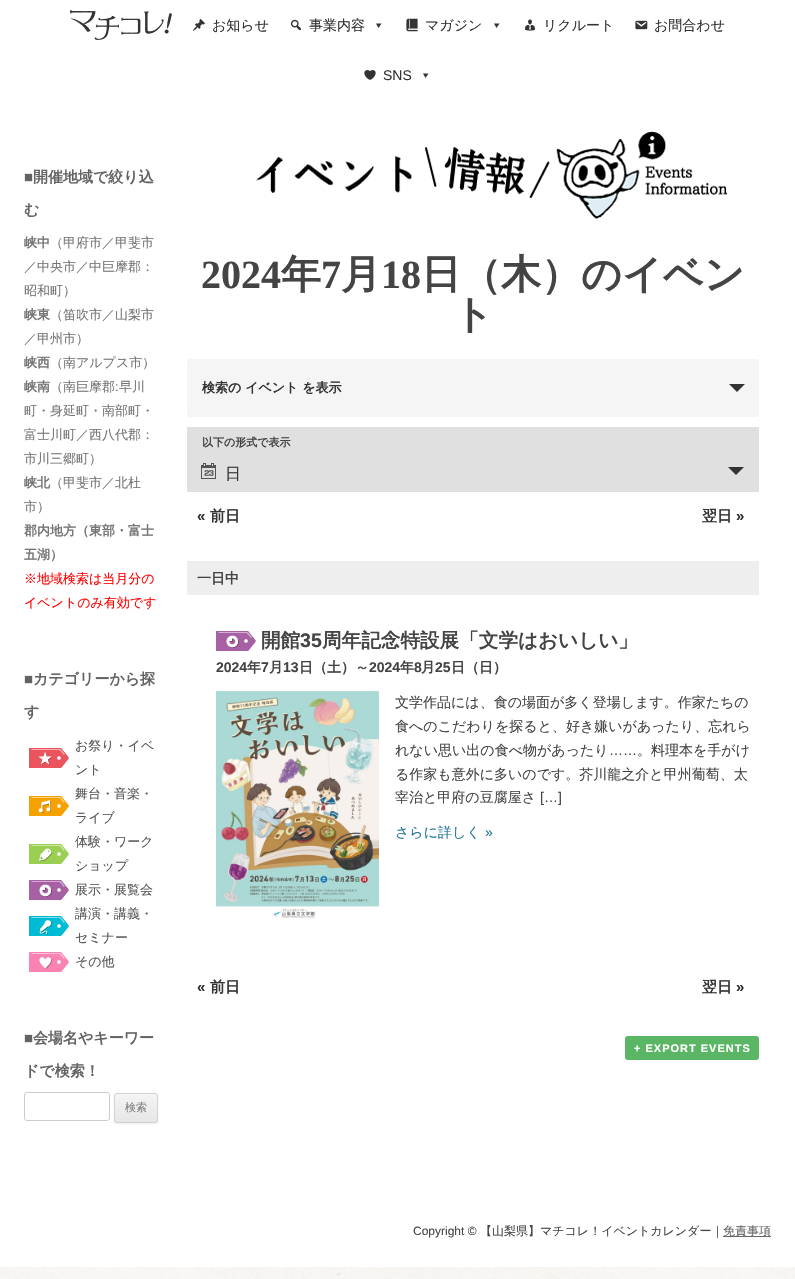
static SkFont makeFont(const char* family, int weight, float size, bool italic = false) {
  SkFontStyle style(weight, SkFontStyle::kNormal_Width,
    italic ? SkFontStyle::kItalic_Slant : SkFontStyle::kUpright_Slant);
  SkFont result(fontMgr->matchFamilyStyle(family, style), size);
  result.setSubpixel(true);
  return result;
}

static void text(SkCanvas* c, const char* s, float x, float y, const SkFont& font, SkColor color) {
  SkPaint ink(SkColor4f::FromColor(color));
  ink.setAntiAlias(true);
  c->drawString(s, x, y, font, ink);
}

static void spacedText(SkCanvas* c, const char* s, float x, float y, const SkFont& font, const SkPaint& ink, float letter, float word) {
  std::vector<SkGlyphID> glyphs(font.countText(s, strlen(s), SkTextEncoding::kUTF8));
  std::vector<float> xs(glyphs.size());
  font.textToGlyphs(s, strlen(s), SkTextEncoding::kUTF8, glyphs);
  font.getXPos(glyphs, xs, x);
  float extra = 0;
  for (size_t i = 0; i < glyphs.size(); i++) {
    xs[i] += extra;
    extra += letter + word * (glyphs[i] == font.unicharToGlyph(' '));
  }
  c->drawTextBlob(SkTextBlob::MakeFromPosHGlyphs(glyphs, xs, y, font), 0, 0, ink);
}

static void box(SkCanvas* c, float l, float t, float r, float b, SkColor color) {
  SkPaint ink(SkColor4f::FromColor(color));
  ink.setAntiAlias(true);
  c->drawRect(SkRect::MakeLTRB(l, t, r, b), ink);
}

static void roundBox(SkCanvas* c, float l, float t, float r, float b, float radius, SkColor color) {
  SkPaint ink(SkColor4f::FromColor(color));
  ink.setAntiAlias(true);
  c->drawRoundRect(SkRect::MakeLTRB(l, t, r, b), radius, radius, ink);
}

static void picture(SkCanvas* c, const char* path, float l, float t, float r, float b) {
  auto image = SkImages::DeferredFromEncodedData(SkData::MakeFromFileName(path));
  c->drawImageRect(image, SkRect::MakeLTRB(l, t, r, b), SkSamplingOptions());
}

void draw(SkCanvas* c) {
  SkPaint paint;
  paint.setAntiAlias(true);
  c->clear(0xffffffff);
  picture(c, "img_01.png", 0, 1267, 795, 1279);
  picture(c, "img_02.png", 70, 10, 172, 40);
  picture(c, "img_03.png", 193, 18, 205, 31);
  SkFont face1 = makeFont("WenQuanYi Zen Hei", 500, 14);
  text(c, "お知らせ", 212, 30, face1, 0xff333333);
  picture(c, "img_04.png", 290, 19, 301, 31);
  text(c, "事業内容", 309, 30, face1, 0xff333333);
  paint.setColor(0xff333333);
  c->drawPath(SkPathBuilder().moveTo(381.5f, 23.5f).lineTo(378.5f, 28).lineTo(376, 23.5f).close().detach(), paint);
  picture(c, "img_05.png", 406, 18, 418, 32);
  text(c, "マガジン", 425, 30, face1, 0xff333333);
  c->drawPath(SkPathBuilder().moveTo(499.5f, 23.5f).lineTo(496.5f, 28).lineTo(494, 23.5f).close().detach(), paint);
  picture(c, "img_06.png", 525, 19, 535, 31);
  text(c, "リクルート", 543, 30, face1, 0xff333333);
  picture(c, "img_07.png", 635, 20, 648, 30);
  text(c, "お問合わせ", 654, 30, face1, 0xff333333);
  picture(c, "img_08.png", 364, 70, 376, 80);
  SkFont face2 = makeFont("Liberation Sans", 400, 14);
  text(c, "SNS", 383, 80, face2, 0xff333333);
  c->drawPath(SkPathBuilder().moveTo(428.5f, 73.5f).lineTo(425.5f, 78).lineTo(423, 73.5f).close().detach(), paint);
  picture(c, "img_09.png", 256, 131, 728, 219);
  SkFont face3 = makeFont("Liberation Sans", 700, 15);
  text(c, "■", 24, 182, face3, 0xff636363);
  SkFont face4 = makeFont("WenQuanYi Zen Hei", 700, 15);
  text(c, "開催地域で絞り込", 33, 182, face4, 0xff636363);
  text(c, "む", 24, 215, face4, 0xff636363);
  SkFont face5 = makeFont("WenQuanYi Zen Hei", 700, 13);
  text(c, "峡中", 24, 247, face5, 0xff757575);
  SkFont face6 = makeFont("WenQuanYi Zen Hei", 500, 13);
  text(c, "（甲府市／甲斐市", 50, 247, face6, 0xff757575);
  text(c, "／中央市／中巨摩郡：", 24, 271, face6, 0xff757575);
  text(c, "昭和町）", 24, 295, face6, 0xff757575);
  text(c, "峡東", 24, 319, face5, 0xff757575);
  text(c, "（笛吹市／山梨市", 50, 319, face6, 0xff757575);
  text(c, "／甲州市）", 24, 343, face6, 0xff757575);
  text(c, "峡西", 24, 367, face5, 0xff757575);
  text(c, "（南アルプス市）", 50, 367, face6, 0xff757575);
  text(c, "峡南", 24, 391, face5, 0xff757575);
  text(c, "（南巨摩郡 早川", 50, 391, face6, 0xff757575);
  SkFont face7 = makeFont("Liberation Sans", 400, 13);
  text(c, ":", 115, 391, face7, 0xff757575);
  text(c, "町・身延町・南部町・", 24, 415, face6, 0xff757575);
  text(c, "富士川町／西八代郡：", 24, 439, face6, 0xff757575);
  text(c, "市川三郷町）", 24, 463, face6, 0xff757575);
  text(c, "峡北", 24, 487, face5, 0xff757575);
  text(c, "（甲斐市／北杜", 50, 487, face6, 0xff757575);
  text(c, "市）", 24, 511, face6, 0xff757575);
  text(c, "郡内地方（東部・富士", 24, 535, face5, 0xff757575);
  text(c, "五湖）", 24, 559, face5, 0xff757575);
  text(c, "※地域検索は当月分の", 24, 583, face6, 0xffff0000);
  text(c, "イベントのみ有効です", 24, 607, face6, 0xffff0000);
  text(c, "■", 24, 684, face3, 0xff636363);
  text(c, "カテゴリーから探", 33, 684, face4, 0xff636363);
  text(c, "す", 24, 717, face4, 0xff636363);
  picture(c, "img_10.png", 29, 748, 69, 768);
  text(c, "お祭り・イベ", 75, 750, face6, 0xff555555);
  text(c, "ント", 75, 774, face6, 0xff555555);
  picture(c, "img_11.png", 29, 796, 69, 816);
  text(c, "舞台・音楽・", 75, 798, face6, 0xff555555);
  text(c, "ライブ", 75, 822, face6, 0xff555555);
  picture(c, "img_12.png", 29, 844, 69, 864);
  text(c, "体験・ワーク", 75, 846, face6, 0xff555555);
  text(c, "ショップ", 75, 870, face6, 0xff555555);
  picture(c, "img_13.png", 29, 880, 69, 900);
  text(c, "展示・展覧会", 75, 894, face6, 0xff555555);
  picture(c, "img_14.png", 29, 916, 69, 936);
  text(c, "講演・講義・", 75, 918, face6, 0xff555555);
  text(c, "セミナー", 75, 942, face6, 0xff555555);
  picture(c, "img_15.png", 29, 952, 69, 972);
  text(c, "その他", 75, 966, face6, 0xff555555);
  text(c, "■", 24, 1043, face3, 0xff636363);
  text(c, "会場名やキーワー", 33, 1043, face4, 0xff636363);
  text(c, "ドで検索！", 24, 1076, face4, 0xff636363);
  paint.setStyle(SkPaint::kStroke_Style);
  paint.setStrokeWidth(1);
  paint.setColor(0xffcccccc);
  c->drawRoundRect(SkRect::MakeLTRB(24.5f, 1092.5f, 109.5f, 1120.5f), 2.5f, 2.5f, paint);
  paint.setStyle(SkPaint::kFill_Style);
  paint.setColor(0x1a404040);
  paint.setMaskFilter(SkMaskFilter::MakeBlur(kNormal_SkBlurStyle, 1));
  c->drawRoundRect(SkRect::MakeLTRB(114, 1094, 158, 1124), 3, 3, paint);
  paint.setMaskFilter(nullptr);
  c->save();
  c->clipPath(SkPathBuilder().moveTo(117, 1093).lineTo(155, 1093).cubicTo(156.5f, 1093, 158, 1094.5f, 158, 1096).lineTo(158, 1120).cubicTo(158, 1121.5f, 156.5f, 1123, 155, 1123).lineTo(117, 1123).cubicTo(115.5f, 1123, 114, 1121.5f, 114, 1120).lineTo(114, 1096).cubicTo(114, 1094.5f, 115.5f, 1093, 117, 1093).close().detach(), true);
  {
    const SkColor colors[] = {0xfff4f4f4, 0xffe6e6e6};
    const float stops[] = {0, 1};
    const SkPoint ends[] = {{136, 1094}, {136, 1122}};
    paint.setShader(SkGradientShader::MakeLinear(ends, colors, stops, 2, SkTileMode::kClamp));
    paint.setAlpha(255);
  }
  c->drawRect(SkRect::MakeLTRB(114, 1094, 158, 1122), paint);
  c->restore();
  paint.setStyle(SkPaint::kStroke_Style);
  paint.setShader(nullptr);
  paint.setColor(0xffd2d2d2);
  c->drawRoundRect(SkRect::MakeLTRB(114.5f, 1093.5f, 157.5f, 1122.5f), 2.5f, 2.5f, paint);
  SkFont face8 = makeFont("WenQuanYi Zen Hei", 500, 11);
  text(c, "検索", 125, 1111, face8, 0xff7c7c7c);
  SkFont face9 = makeFont("Liberation Serif", 700, 40);
  text(c, "2024", 201, 288, face9, 0xff444444);
  SkFont face10 = makeFont("WenQuanYi Zen Hei", 700, 40);
  text(c, "年", 281, 288, face10, 0xff444444);
  text(c, "7", 321, 288, face9, 0xff444444);
  text(c, "月", 341, 288, face10, 0xff444444);
  text(c, "18", 381, 288, face9, 0xff444444);
  text(c, "日（木）のイベン", 421, 288, face10, 0xff444444);
  text(c, "ト", 453, 328, face10, 0xff444444);
  roundBox(c, 187, 359, 759, 417, 3, 0xfff5f5f5);
  text(c, "検索の イベント を表示", 202, 392, face5, 0xff333333);
  paint.setStyle(SkPaint::kFill_Style);
  paint.setColor(0xff333333);
  c->drawPath(SkPathBuilder().moveTo(729, 384).lineTo(745, 384).lineTo(737, 392).close().detach(), paint);
  box(c, 187, 427, 759, 492, 0xffe0e0e0);
  SkFont face11 = makeFont("WenQuanYi Zen Hei", 700, 11);
  text(c, "以下の形式で表示", 202, 446, face11, 0xff444444);
  picture(c, "img_16.png", 201, 463, 216, 479);
  SkFont face12 = makeFont("WenQuanYi Zen Hei", 500, 16);
  text(c, "日", 225, 479, face12, 0xff333333);
  c->drawPath(SkPathBuilder().moveTo(728, 467).lineTo(744, 467).lineTo(736, 475).close().detach(), paint);
  text(c, "«", 197, 521, face3, 0xff333333);
  text(c, "前日", 210, 521, face4, 0xff333333);
  text(c, "翌日", 702, 521, face4, 0xff333333);
  text(c, "»", 736, 521, face3, 0xff333333);
  box(c, 187, 561, 759, 595, 0xffeeeeee);
  SkFont face13 = makeFont("WenQuanYi Zen Hei", 700, 14);
  text(c, "一日中", 197, 583, face13, 0xff444444);
  picture(c, "img_13.png", 216, 631, 256, 651);
  SkFont face14 = makeFont("WenQuanYi Zen Hei", 700, 19.6f);
  text(c, "開館", 261, 647, face14, 0xff444444);
  SkFont face15 = makeFont("Liberation Sans", 700, 19.6f);
  text(c, "35", 300, 647, face15, 0xff444444);
  text(c, "周年記念特設展「文学はおいしい」", 322, 647, face14, 0xff444444);
  SkFont face16 = makeFont("Liberation Sans", 700, 14);
  text(c, "2024", 216, 672, face16, 0xff444444);
  text(c, "年", 247, 672, face13, 0xff444444);
  text(c, "7", 261, 672, face16, 0xff444444);
  text(c, "月", 269, 672, face13, 0xff444444);
  text(c, "13", 283, 672, face16, 0xff444444);
  text(c, "日（土）～", 299, 672, face13, 0xff444444);
  text(c, "2024", 369, 672, face16, 0xff444444);
  text(c, "年", 400, 672, face13, 0xff444444);
  text(c, "8", 414, 672, face16, 0xff444444);
  text(c, "月", 421, 672, face13, 0xff444444);
  text(c, "25", 435, 672, face16, 0xff444444);
  text(c, "日（日）", 451, 672, face13, 0xff444444);
  picture(c, "img_17.png", 216, 691, 379, 918);
  text(c, "文学作品には、食の場面が多く登場します。作家たちの", 395, 707, face1, 0xff444444);
  text(c, "食へのこだわりを探ると、好き嫌いがあったり、忘れら", 395, 731, face1, 0xff444444);
  text(c, "れない思い出の食べ物があったり", 395, 755, face1, 0xff444444);
  text(c, "……", 609, 755, face2, 0xff444444);
  text(c, "。料理本を手がけ", 637, 755, face1, 0xff444444);
  text(c, "る作家も意外に多いのです。芥川龍之介と甲州葡萄、太", 395, 779, face1, 0xff444444);
  text(c, "宰治と甲府の豆腐屋さ", 395, 802, face1, 0xff444444);
  text(c, "[…]", 540, 802, face2, 0xff444444);
  text(c, "さらに詳しく", 395, 837, face1, 0xff21759b);
  text(c, "»", 485, 837, face2, 0xff21759b);
  text(c, "«", 197, 992, face3, 0xff333333);
  text(c, "前日", 210, 992, face4, 0xff333333);
  text(c, "翌日", 702, 992, face4, 0xff333333);
  text(c, "»", 736, 992, face3, 0xff333333);
  roundBox(c, 625, 1036, 759, 1060, 3, 0xff5ab565);
  SkFont face17 = makeFont("Liberation Sans", 700, 11);
  paint.setColor(0xffffffff);
  spacedText(c, "+ EXPORT EVENTS", 634, 1052, face17, paint, 1, 0);
  SkFont face18 = makeFont("Liberation Sans", 400, 12);
  text(c, "Copyright ©", 413, 1235, face18, 0xff444444);
  SkFont face19 = makeFont("WenQuanYi Zen Hei", 500, 12);
  text(c, "【山梨県】マチコレ！イベントカレンダー｜", 480, 1235, face19, 0xff444444);
  box(c, 723, 1236, 771, 1237, 0xff686868);
  text(c, "免責事項", 723, 1235, face19, 0xff636363);
}
